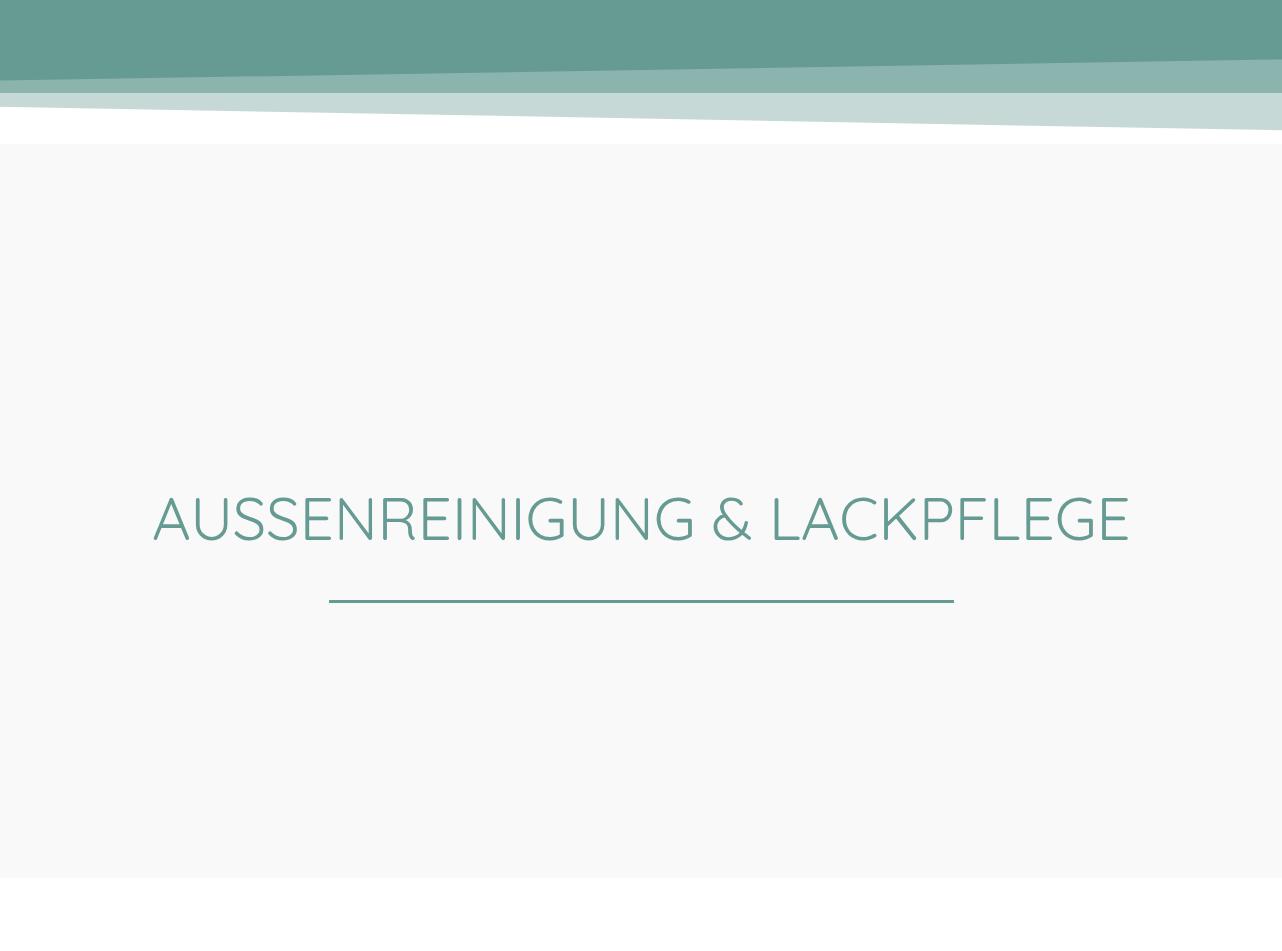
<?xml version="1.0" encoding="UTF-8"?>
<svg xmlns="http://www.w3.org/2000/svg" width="1282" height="951">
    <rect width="100%" height="100%" fill="#F9F9F9"/>
    <rect x="0" y="0" width="1282" height="93" fill="#669B93"/>
    <rect x="0" y="93" width="1282" height="38" fill="#B3CDC9"/>
    <path d="M 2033 144 H -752 V 93 Z" fill="#FFFFFF"/>
    <path d="M -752 144 H 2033 V 47 L -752 93 Z" fill="#FFFFFF" fill-opacity="0.25"/>
    <text x="152" y="540" font-family="Quicksand" font-size="60" fill="#669B93">AUSSENREINIGUNG &amp; LACKPFLEGE</text>
    <rect x="329" y="600" width="625" height="3" fill="#669B93"/>
    <rect x="0" y="878" width="1282" height="73" fill="#FFFFFF"/>
</svg>
